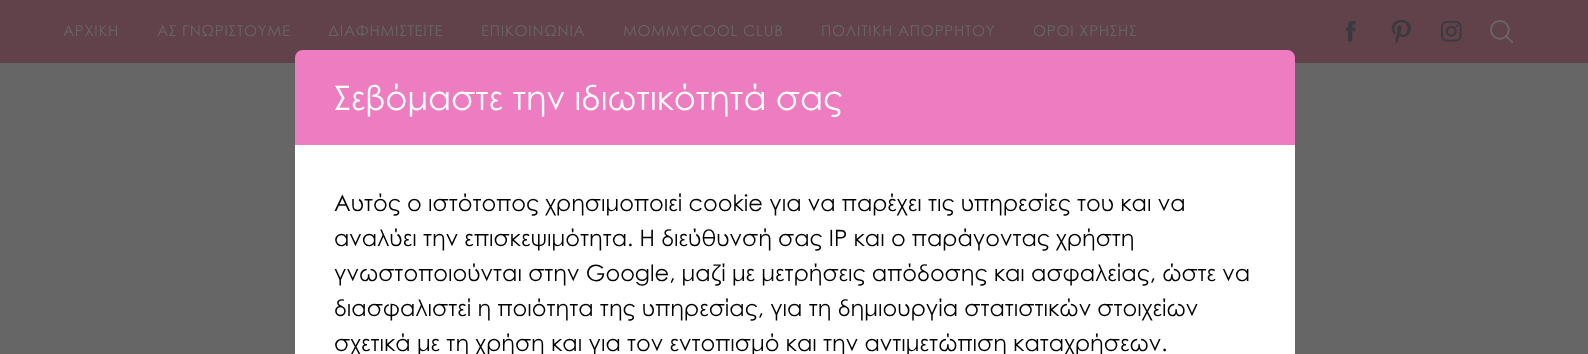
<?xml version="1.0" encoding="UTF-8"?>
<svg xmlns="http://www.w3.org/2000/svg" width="1588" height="354">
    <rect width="100%" height="100%" fill="#666666"/>
    <rect x="0" y="0" width="1588" height="63" fill="#62424A"/>
    <text x="63" y="36" font-family="Century Gothic" font-size="15" letter-spacing="0.75" fill="#666666">ΑΡΧΙΚΗ</text>
    <text x="157" y="36" font-family="Century Gothic" font-size="15" letter-spacing="0.75" fill="#666666">ΑΣ ΓΝΩΡΙΣΤΟΥΜΕ</text>
    <text x="328" y="36" font-family="Century Gothic" font-size="15" letter-spacing="0.75" fill="#666666">ΔΙΑΦΗΜΙΣΤΕΙΤΕ</text>
    <text x="481" y="36" font-family="Century Gothic" font-size="15" letter-spacing="0.75" fill="#666666">ΕΠΙΚΟΙΝΩΝΙΑ</text>
    <text x="623" y="36" font-family="Century Gothic" font-size="15" letter-spacing="0.75" fill="#666666">MOMMYCOOL CLUB</text>
    <text x="821" y="36" font-family="Century Gothic" font-size="15" letter-spacing="0.75" fill="#666666">ΠΟΛΙΤΙΚΗ ΑΠΟΡΡΗΤΟΥ</text>
    <text x="1033" y="36" font-family="Century Gothic" font-size="15" letter-spacing="0.75" fill="#666666">ΟΡΟΙ ΧΡΗΣΗΣ</text>
    <image x="1345" y="20" width="11" height="22" href="img_01.png"/>
    <image x="1391" y="19" width="20" height="25" href="img_02.png"/>
    <image x="1440" y="20" width="22" height="22" href="img_03.png"/>
    <image x="1490" y="20" width="23" height="23" href="img_04.png"/>
    <path d="M 303 50 H 1287 C 1291.5 50 1295 53.5 1295 58 V 145 H 295 V 58 C 295 53.5 298.5 50 303 50 Z" fill="#ED7DC0"/>
    <text x="334" y="110" font-family="Century Gothic" font-size="33.75" fill="#FFFFFF">Σεβόμαστε την ιδιωτικότητά σας</text>
    <rect x="295" y="145" width="1000" height="209" fill="#FFFFFF"/>
    <text font-family="Century Gothic" font-size="22.5" fill="#000000">
        <tspan x="334" y="211">Αυτός ο ιστότοπος χρησιμοποιεί cookie για να παρέχει τις υπηρεσίες του και να</tspan>
        <tspan x="334" y="246">αναλύει την επισκεψιμότητα. Η διεύθυνσή σας IP και ο παράγοντας χρήστη</tspan>
        <tspan x="334" y="281">γνωστοποιούνται στην Google, μαζί με μετρήσεις απόδοσης και ασφαλείας, ώστε να</tspan>
        <tspan x="334" y="316">διασφαλιστεί η ποιότητα της υπηρεσίας, για τη δημιουργία στατιστικών στοιχείων</tspan>
        <tspan x="334" y="351">σχετικά με τη χρήση και για τον εντοπισμό και την αντιμετώπιση καταχρήσεων.</tspan>
    </text>
</svg>
